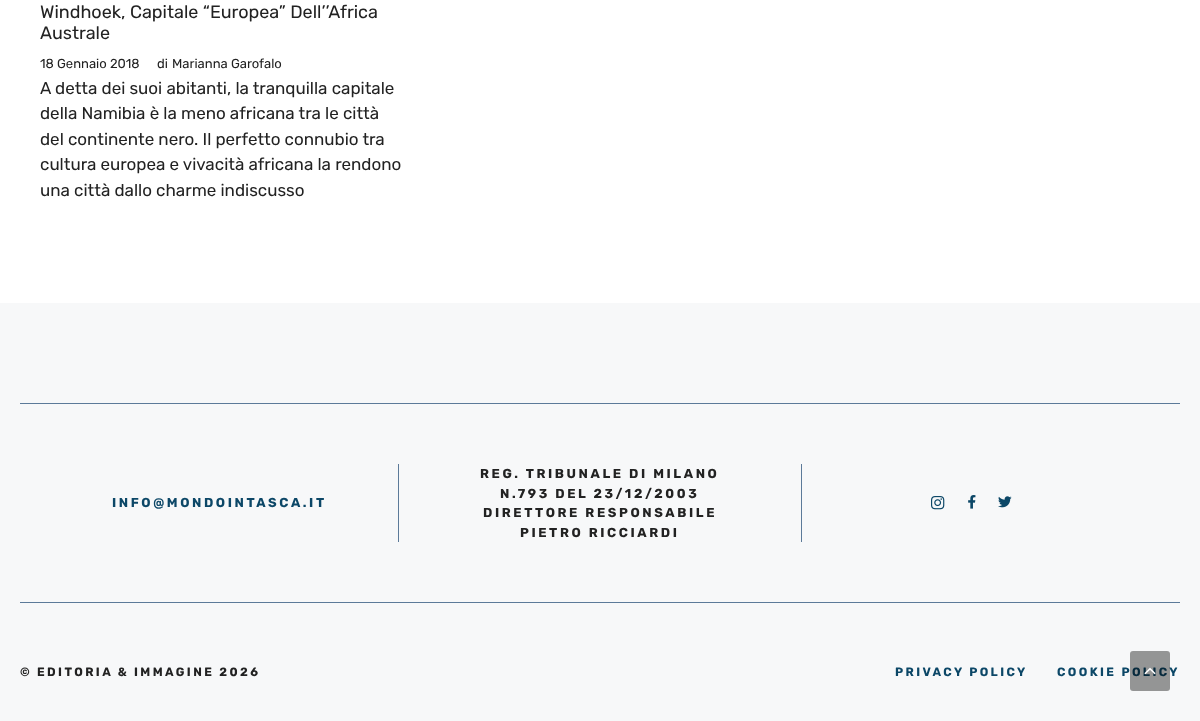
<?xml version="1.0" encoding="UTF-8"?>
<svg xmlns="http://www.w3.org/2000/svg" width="1200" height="721">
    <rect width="100%" height="100%" fill="#FFFFFF"/>
    <text font-family="Rubik" font-size="18" fill="#222222">
        <tspan x="40" y="18">Windhoek, Capitale “Europea” Dell’’Africa</tspan>
        <tspan x="40" y="39">Australe</tspan>
    </text>
    <text x="40" y="68" font-family="Rubik" font-size="13" fill="#222222">18 Gennaio 2018</text>
    <text x="157" y="68" font-family="Rubik" font-size="13" fill="#222222">di</text>
    <text x="172" y="68" font-family="Rubik" font-size="13" fill="#222222">Marianna Garofalo</text>
    <text font-family="Rubik" font-size="17" fill="#222222">
        <tspan x="40" y="94">A detta dei suoi abitanti, la tranquilla capitale</tspan>
        <tspan x="40" y="119">della Namibia è la meno africana tra le città</tspan>
        <tspan x="40" y="145">del continente nero. Il perfetto connubio tra</tspan>
        <tspan x="40" y="170">cultura europea e vivacità africana la rendono</tspan>
        <tspan x="40" y="196">una città dallo charme indiscusso</tspan>
    </text>
    <rect x="0" y="303" width="1200" height="418" fill="#F7F8F9"/>
    <rect x="20" y="403" width="1160" height="1" fill="#5C7A99"/>
    <rect x="20" y="602" width="1160" height="1" fill="#5C7A99"/>
    <text x="112" y="507" font-family="Rubik" font-size="13" font-weight="700" letter-spacing="2.6" fill="#0C4767">INFO@MONDOINTASCA.IT</text>
    <rect x="801" y="464" width="1" height="78" fill="#5C7A99"/>
    <rect x="398" y="464" width="1" height="78" fill="#5C7A99"/>
    <text x="480" y="478" font-family="Rubik" font-size="13" font-weight="700" letter-spacing="2.6" fill="#222222">REG. TRIBUNALE DI MILANO</text>
    <text x="500" y="498" font-family="Rubik" font-size="13" font-weight="700" letter-spacing="2.6" fill="#222222">N.793 DEL 23/12/2003</text>
    <text x="483" y="517" font-family="Rubik" font-size="13" font-weight="700" letter-spacing="2.6" fill="#222222">DIRETTORE RESPONSABILE</text>
    <text x="520" y="537" font-family="Rubik" font-size="13" font-weight="700" letter-spacing="2.6" fill="#222222">PIETRO RICCIARDI</text>
    <image x="931" y="496" width="14" height="14" href="img_01.png"/>
    <image x="968" y="495" width="8" height="14" href="img_02.png"/>
    <image x="998" y="496" width="14" height="12" href="img_03.png"/>
    <text x="20" y="676" font-family="Rubik" font-size="12" font-weight="700" letter-spacing="2.4" fill="#222222">© EDITORIA &amp; IMMAGINE 2026</text>
    <text x="895" y="676" font-family="Rubik" font-size="12" font-weight="700" letter-spacing="2.4" fill="#0C4767">PRIVACY POLICY</text>
    <text x="1057" y="676" font-family="Rubik" font-size="12" font-weight="700" letter-spacing="2.4" fill="#0C4767">COOKIE POLICY</text>
    <rect x="1130" y="651" width="40" height="40" rx="3" fill="#000000" fill-opacity="0.4"/>
    <image x="1144" y="667" width="12" height="8" href="img_04.png"/>
</svg>
